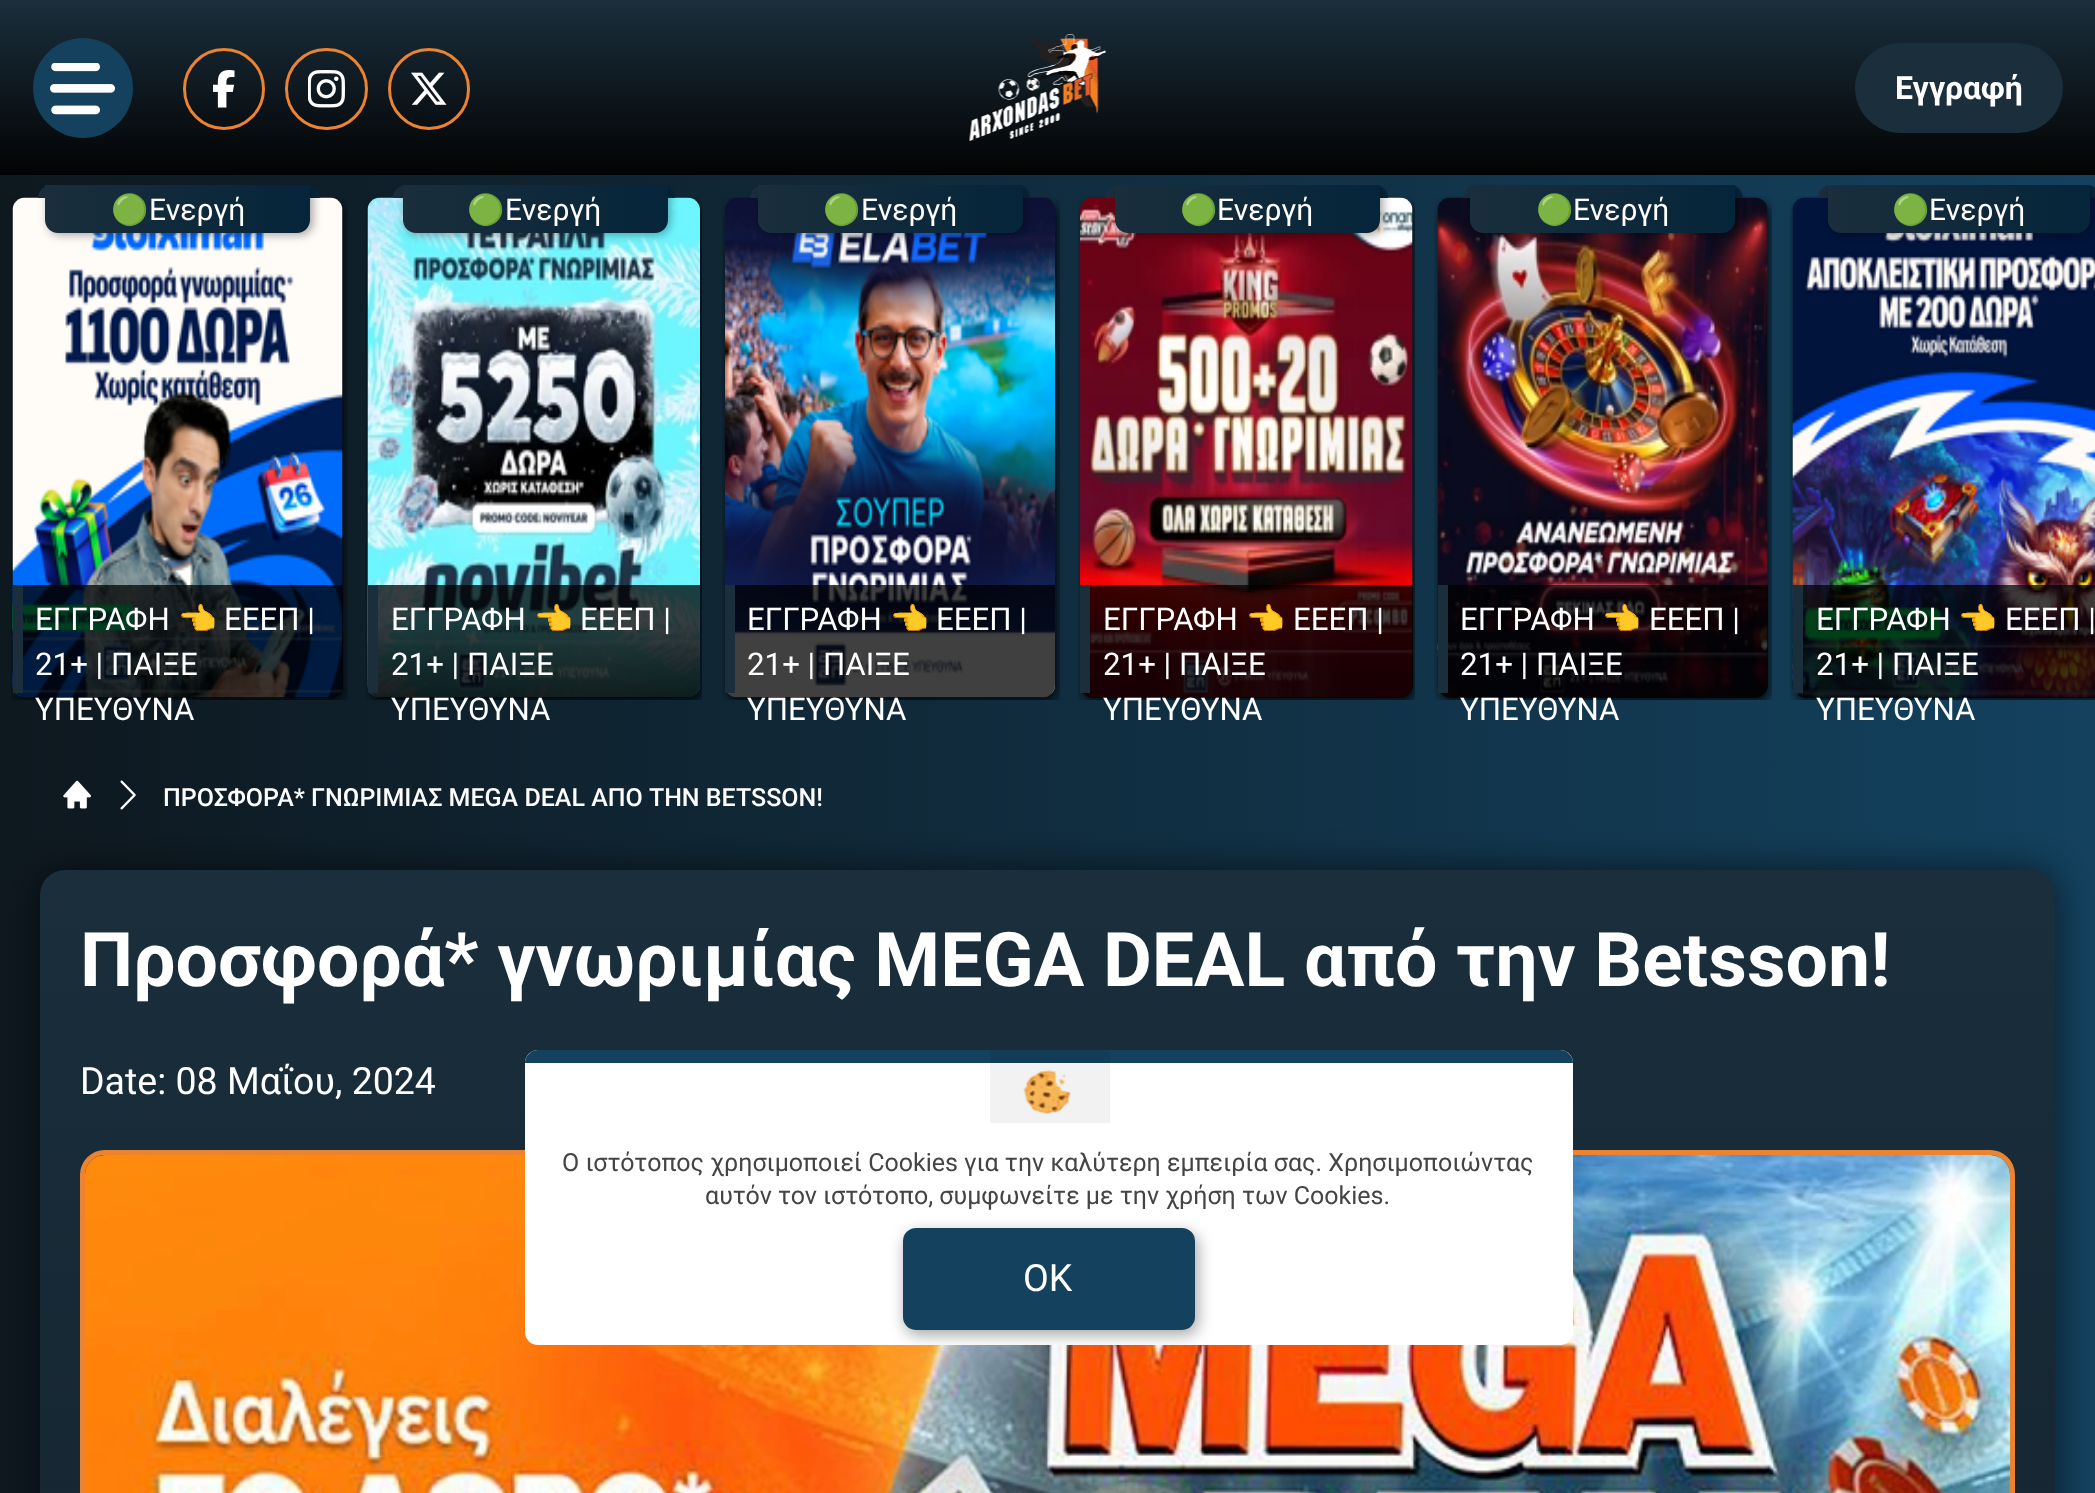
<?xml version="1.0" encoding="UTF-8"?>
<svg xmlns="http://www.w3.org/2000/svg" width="2095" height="1493">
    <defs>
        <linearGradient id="g1" gradientUnits="userSpaceOnUse" x1="2095" y1="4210" x2="0" y2="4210"><stop offset="0" stop-color="#13415E"/><stop offset="1" stop-color="#0E181F"/></linearGradient>
        <linearGradient id="g2" gradientUnits="userSpaceOnUse" x1="38" y1="191" x2="320" y2="191"><stop offset="0" stop-color="#1A2E3C"/><stop offset="1" stop-color="#05253A"/></linearGradient>
        <clipPath id="clip1"><rect x="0" y="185" width="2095" height="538"/></clipPath>
        <filter id="blur1" x="-50%" y="-200%" width="200%" height="500%"><feGaussianBlur stdDeviation="5"/></filter>
        <linearGradient id="g3" gradientUnits="userSpaceOnUse" x1="393" y1="191" x2="675" y2="191"><stop offset="0" stop-color="#1A2E3C"/><stop offset="1" stop-color="#05253A"/></linearGradient>
        <linearGradient id="g4" gradientUnits="userSpaceOnUse" x1="750" y1="191" x2="1030" y2="191"><stop offset="0" stop-color="#1A2E3C"/><stop offset="1" stop-color="#05253A"/></linearGradient>
        <linearGradient id="g5" gradientUnits="userSpaceOnUse" x1="1105" y1="191" x2="1388" y2="191"><stop offset="0" stop-color="#1A2E3C"/><stop offset="1" stop-color="#05253A"/></linearGradient>
        <linearGradient id="g6" gradientUnits="userSpaceOnUse" x1="1463" y1="191" x2="1743" y2="191"><stop offset="0" stop-color="#1A2E3C"/><stop offset="1" stop-color="#05253A"/></linearGradient>
        <linearGradient id="g7" gradientUnits="userSpaceOnUse" x1="1818" y1="191" x2="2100" y2="191"><stop offset="0" stop-color="#1A2E3C"/><stop offset="1" stop-color="#05253A"/></linearGradient>
        <linearGradient id="g8" gradientUnits="userSpaceOnUse" x1="1048" y1="0" x2="1048" y2="175"><stop offset="0" stop-color="#1A2E3C"/><stop offset="1" stop-color="#030303"/></linearGradient>
        <linearGradient id="g9" gradientUnits="userSpaceOnUse" x1="45" y1="208" x2="310" y2="208"><stop offset="0" stop-color="#1A2E3C"/><stop offset="1" stop-color="#05253A"/></linearGradient>
        <linearGradient id="g10" gradientUnits="userSpaceOnUse" x1="403" y1="208" x2="668" y2="208"><stop offset="0" stop-color="#1A2E3C"/><stop offset="1" stop-color="#05253A"/></linearGradient>
        <linearGradient id="g11" gradientUnits="userSpaceOnUse" x1="758" y1="208" x2="1023" y2="208"><stop offset="0" stop-color="#1A2E3C"/><stop offset="1" stop-color="#05253A"/></linearGradient>
        <linearGradient id="g12" gradientUnits="userSpaceOnUse" x1="1115" y1="208" x2="1380" y2="208"><stop offset="0" stop-color="#1A2E3C"/><stop offset="1" stop-color="#05253A"/></linearGradient>
        <linearGradient id="g13" gradientUnits="userSpaceOnUse" x1="1470" y1="208" x2="1735" y2="208"><stop offset="0" stop-color="#1A2E3C"/><stop offset="1" stop-color="#05253A"/></linearGradient>
        <linearGradient id="g14" gradientUnits="userSpaceOnUse" x1="1828" y1="208" x2="2090" y2="208"><stop offset="0" stop-color="#1A2E3C"/><stop offset="1" stop-color="#05253A"/></linearGradient>
        <filter id="blur2" x="-50%" y="-200%" width="200%" height="500%"><feGaussianBlur stdDeviation="19"/></filter>
        <linearGradient id="g15" gradientUnits="userSpaceOnUse" x1="1047" y1="870" x2="1048" y2="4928"><stop offset="0" stop-color="#1A2E3C"/><stop offset="0.5" stop-color="#0E181F"/></linearGradient>
        <clipPath id="clip2"><rect x="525" y="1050" width="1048" height="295" rx="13"/></clipPath>
        <clipPath id="clip3"><path d="M 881 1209 H 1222 V 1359 H 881 Z M 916 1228 H 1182 C 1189 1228 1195 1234 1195 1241 V 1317 C 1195 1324 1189 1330 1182 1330 H 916 C 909 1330 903 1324 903 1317 V 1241 C 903 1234 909 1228 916 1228 Z" clip-rule="evenodd"/></clipPath>
        <filter id="blur3" x="-50%" y="-200%" width="200%" height="500%"><feGaussianBlur stdDeviation="7.5"/></filter>
    </defs>
    <rect width="100%" height="100%" fill="#FFFFFF"/>
    <rect x="0" y="175" width="2095" height="1318" fill="url(#g1)"/>
    <image x="11" y="197" width="337" height="503" href="img_06.png"/>
    <path d="M 51 185 H 307 C 314 185 320 191 320 198 H 38 C 38 191 44 185 51 185 Z" fill="url(#g2)"/>
    <g clip-path="url(#clip1)">
        <rect x="48" y="185" width="265" height="50" rx="13" fill="#000000" fill-opacity="0.35" filter="url(#blur1)"/>
    </g>
    <image x="365" y="197" width="337" height="503" href="img_07.png"/>
    <path d="M 406 185 H 662 C 669 185 675 191 675 198 H 393 C 393 191 399 185 406 185 Z" fill="url(#g3)"/>
    <g clip-path="url(#clip1)">
        <rect x="405" y="185" width="265" height="50" rx="13" fill="#000000" fill-opacity="0.35" filter="url(#blur1)"/>
    </g>
    <image x="722" y="197" width="338" height="503" href="img_08.png"/>
    <path d="M 763 185 H 1017 C 1024 185 1030 191 1030 198 H 750 C 750 191 756 185 763 185 Z" fill="url(#g4)"/>
    <g clip-path="url(#clip1)">
        <rect x="760" y="185" width="265" height="50" rx="13" fill="#000000" fill-opacity="0.35" filter="url(#blur1)"/>
    </g>
    <image x="1078" y="196" width="337" height="504" href="img_09.png"/>
    <path d="M 1118 185 H 1375 C 1382 185 1388 191 1388 198 H 1105 C 1105 191 1111 185 1118 185 Z" fill="url(#g5)"/>
    <g clip-path="url(#clip1)">
        <rect x="1118" y="185" width="265" height="50" rx="13" fill="#000000" fill-opacity="0.35" filter="url(#blur1)"/>
    </g>
    <image x="1434" y="196" width="338" height="504" href="img_10.png"/>
    <path d="M 1476 185 H 1730 C 1737 185 1743 191 1743 198 H 1463 C 1463 191 1469 185 1476 185 Z" fill="url(#g6)"/>
    <g clip-path="url(#clip1)">
        <rect x="1473" y="185" width="265" height="50" rx="13" fill="#000000" fill-opacity="0.35" filter="url(#blur1)"/>
    </g>
    <image x="1790" y="196" width="305" height="504" href="img_11.png"/>
    <path d="M 1831 185 H 2087 C 2094 185 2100 191 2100 198 H 1818 C 1818 191 1824 185 1831 185 Z" fill="url(#g7)"/>
    <g clip-path="url(#clip1)">
        <rect x="1830" y="185" width="263" height="50" rx="13" fill="#000000" fill-opacity="0.35" filter="url(#blur1)"/>
    </g>
    <rect x="0" y="0" width="2095" height="175" fill="url(#g8)"/>
    <circle cx="83" cy="88" r="50" fill="#13415E"/>
    <image x="50" y="63" width="65" height="52" href="img_01.png"/>
    <circle cx="224" cy="89" r="39.5" fill="none" stroke="#EC8331" stroke-width="3"/>
    <image x="213" y="70" width="22" height="38" href="img_02.png"/>
    <rect x="286.5" y="49.5" width="80" height="79" rx="39.5" fill="none" stroke="#EC8331" stroke-width="3"/>
    <image x="308" y="70" width="37" height="38" href="img_03.png"/>
    <circle cx="429" cy="89" r="39.5" fill="none" stroke="#EC8331" stroke-width="3"/>
    <image x="411" y="72" width="36" height="33" href="img_04.png"/>
    <image x="969" y="34" width="137" height="107" href="img_05.png"/>
    <rect x="1855" y="43" width="208" height="90" rx="45" fill="#1A2E3C"/>
    <text x="1895" y="99" font-family="Roboto" font-size="32" font-weight="700" fill="#FFFFFF">Εγγραφή</text>
    <path d="M 45 185 H 310 V 220 C 310 227 304 233 297 233 H 58 C 51 233 45 227 45 220 Z" fill="url(#g9)"/>
    <text x="111" y="220" font-family="Noto Color Emoji" font-size="30" fill="#FFFFFF">🟢</text>
    <text x="149" y="220" font-family="Roboto" font-size="30" fill="#FFFFFF">Ενεργή</text>
    <path d="M 13 585 H 343 V 685 C 343 692 337 698 330 698 H 26 C 19 698 13 692 13 685 Z" fill="#000000" fill-opacity="0.75"/>
    <rect x="13" y="585" width="10" height="108" fill="#1A2E3C"/>
    <text x="35" y="630" font-family="Roboto" font-size="31.25" fill="#FFFFFF">ΕΓΓΡΑΦΗ</text>
    <text x="178" y="630" font-family="Noto Color Emoji" font-size="31.25" fill="#FFFFFF">👈</text>
    <text x="224" y="630" font-family="Roboto" font-size="31.25" fill="#FFFFFF">ΕΕΕΠ |</text>
    <text font-family="Roboto" font-size="31.25" fill="#FFFFFF">
        <tspan x="35" y="675">21+ | ΠΑΙΞΕ</tspan>
        <tspan x="35" y="720">ΥΠΕΥΘΥΝΑ</tspan>
    </text>
    <path d="M 403 185 H 668 V 220 C 668 227 662 233 655 233 H 416 C 409 233 403 227 403 220 Z" fill="url(#g10)"/>
    <text x="467" y="220" font-family="Noto Color Emoji" font-size="30" fill="#FFFFFF">🟢</text>
    <text x="505" y="220" font-family="Roboto" font-size="30" fill="#FFFFFF">Ενεργή</text>
    <path d="M 368 585 H 700 V 685 C 700 692 694 698 687 698 H 381 C 374 698 368 692 368 685 Z" fill="#000000" fill-opacity="0.75"/>
    <rect x="368" y="585" width="10" height="108" fill="#1A2E3C"/>
    <text x="391" y="630" font-family="Roboto" font-size="31.25" fill="#FFFFFF">ΕΓΓΡΑΦΗ</text>
    <text x="534" y="630" font-family="Noto Color Emoji" font-size="31.25" fill="#FFFFFF">👈</text>
    <text x="580" y="630" font-family="Roboto" font-size="31.25" fill="#FFFFFF">ΕΕΕΠ |</text>
    <text font-family="Roboto" font-size="31.25" fill="#FFFFFF">
        <tspan x="391" y="675">21+ | ΠΑΙΞΕ</tspan>
        <tspan x="391" y="720">ΥΠΕΥΘΥΝΑ</tspan>
    </text>
    <path d="M 758 185 H 1023 V 220 C 1023 227 1017 233 1010 233 H 771 C 764 233 758 227 758 220 Z" fill="url(#g11)"/>
    <text x="823" y="220" font-family="Noto Color Emoji" font-size="30" fill="#FFFFFF">🟢</text>
    <text x="861" y="220" font-family="Roboto" font-size="30" fill="#FFFFFF">Ενεργή</text>
    <path d="M 725 585 H 1055 V 685 C 1055 692 1049 698 1042 698 H 738 C 731 698 725 692 725 685 Z" fill="#000000" fill-opacity="0.75"/>
    <rect x="725" y="585" width="10" height="108" fill="#1A2E3C"/>
    <text x="747" y="630" font-family="Roboto" font-size="31.25" fill="#FFFFFF">ΕΓΓΡΑΦΗ</text>
    <text x="890" y="630" font-family="Noto Color Emoji" font-size="31.25" fill="#FFFFFF">👈</text>
    <text x="936" y="630" font-family="Roboto" font-size="31.25" fill="#FFFFFF">ΕΕΕΠ |</text>
    <text font-family="Roboto" font-size="31.25" fill="#FFFFFF">
        <tspan x="747" y="675">21+ | ΠΑΙΞΕ</tspan>
        <tspan x="747" y="720">ΥΠΕΥΘΥΝΑ</tspan>
    </text>
    <path d="M 1115 185 H 1380 V 220 C 1380 227 1374 233 1367 233 H 1128 C 1121 233 1115 227 1115 220 Z" fill="url(#g12)"/>
    <text x="1180" y="220" font-family="Noto Color Emoji" font-size="30" fill="#FFFFFF">🟢</text>
    <text x="1217" y="220" font-family="Roboto" font-size="30" fill="#FFFFFF">Ενεργή</text>
    <path d="M 1080 585 H 1413 V 685 C 1413 692 1407 698 1400 698 H 1093 C 1086 698 1080 692 1080 685 Z" fill="#000000" fill-opacity="0.75"/>
    <rect x="1080" y="585" width="10" height="108" fill="#1A2E3C"/>
    <text x="1103" y="630" font-family="Roboto" font-size="31.25" fill="#FFFFFF">ΕΓΓΡΑΦΗ</text>
    <text x="1246" y="630" font-family="Noto Color Emoji" font-size="31.25" fill="#FFFFFF">👈</text>
    <text x="1293" y="630" font-family="Roboto" font-size="31.25" fill="#FFFFFF">ΕΕΕΠ |</text>
    <text font-family="Roboto" font-size="31.25" fill="#FFFFFF">
        <tspan x="1103" y="675">21+ | ΠΑΙΞΕ</tspan>
        <tspan x="1103" y="720">ΥΠΕΥΘΥΝΑ</tspan>
    </text>
    <path d="M 1470 185 H 1735 V 220 C 1735 227 1729 233 1722 233 H 1483 C 1476 233 1470 227 1470 220 Z" fill="url(#g13)"/>
    <text x="1536" y="220" font-family="Noto Color Emoji" font-size="30" fill="#FFFFFF">🟢</text>
    <text x="1573" y="220" font-family="Roboto" font-size="30" fill="#FFFFFF">Ενεργή</text>
    <path d="M 1438 585 H 1768 V 685 C 1768 692 1762 698 1755 698 H 1451 C 1444 698 1438 692 1438 685 Z" fill="#000000" fill-opacity="0.75"/>
    <rect x="1438" y="585" width="10" height="108" fill="#1A2E3C"/>
    <text x="1460" y="630" font-family="Roboto" font-size="31.25" fill="#FFFFFF">ΕΓΓΡΑΦΗ</text>
    <text x="1602" y="630" font-family="Noto Color Emoji" font-size="31.25" fill="#FFFFFF">👈</text>
    <text x="1649" y="630" font-family="Roboto" font-size="31.25" fill="#FFFFFF">ΕΕΕΠ |</text>
    <text font-family="Roboto" font-size="31.25" fill="#FFFFFF">
        <tspan x="1460" y="675">21+ | ΠΑΙΞΕ</tspan>
        <tspan x="1460" y="720">ΥΠΕΥΘΥΝΑ</tspan>
    </text>
    <path d="M 1828 185 H 2090 V 220 C 2090 227 2084 233 2077 233 H 1841 C 1834 233 1828 227 1828 220 Z" fill="url(#g14)"/>
    <text x="1892" y="220" font-family="Noto Color Emoji" font-size="30" fill="#FFFFFF">🟢</text>
    <text x="1929" y="220" font-family="Roboto" font-size="30" fill="#FFFFFF">Ενεργή</text>
    <path d="M 1793 585 H 2095 V 698 H 1806 C 1799 698 1793 692 1793 685 Z" fill="#000000" fill-opacity="0.75"/>
    <rect x="1793" y="585" width="10" height="108" fill="#1A2E3C"/>
    <text x="1816" y="630" font-family="Roboto" font-size="31.25" fill="#FFFFFF">ΕΓΓΡΑΦΗ</text>
    <text x="1958" y="630" font-family="Noto Color Emoji" font-size="31.25" fill="#FFFFFF">👈</text>
    <text x="2005" y="630" font-family="Roboto" font-size="31.25" fill="#FFFFFF">ΕΕΕΠ |</text>
    <text font-family="Roboto" font-size="31.25" fill="#FFFFFF">
        <tspan x="1816" y="675">21+ | ΠΑΙΞΕ</tspan>
        <tspan x="1816" y="720">ΥΠΕΥΘΥΝΑ</tspan>
    </text>
    <image x="63" y="780" width="28" height="29" href="img_12.png"/>
    <image x="120" y="780" width="16" height="30" href="img_13.png"/>
    <text x="163" y="806" font-family="Roboto" font-size="25" font-weight="500" fill="#FFFFFF">ΠΡΟΣΦΟΡΑ* ΓΝΩΡΙΜΙΑΣ MEGA DEAL ΑΠΟ ΤΗΝ BETSSON!</text>
    <rect x="40" y="870" width="2015" height="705" rx="25" fill="#000000" fill-opacity="0.6" filter="url(#blur2)"/>
    <rect x="40" y="870" width="2015" height="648" rx="25" fill="url(#g15)"/>
    <text x="80" y="986" font-family="Roboto" font-size="75.2" font-weight="700" fill="#FFFFFF">Προσφορά* γνωριμίας MEGA DEAL από την Betsson!</text>
    <text x="80" y="1094" font-family="Roboto" font-size="37.5" fill="#FFFFFF">Date: 08 Μαΐου, 2024</text>
    <rect x="82.5" y="1152.5" width="1930" height="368" rx="22.5" fill="none" stroke="#EC8331" stroke-width="5"/>
    <image x="85" y="1155" width="1925" height="338" href="img_14.png"/>
    <rect x="525" y="1050" width="1048" height="295" rx="13" fill="#FFFFFF"/>
    <path d="M 538 1050 H 1560 C 1567 1050 1573 1056 1573 1063 H 525 C 525 1056 531 1050 538 1050 Z" fill="#13415E"/>
    <rect x="990" y="1050" width="120" height="73" fill="#000000" fill-opacity="0.05"/>
    <image x="1023" y="1070" width="48" height="44" href="img_15.png"/>
    <text x="562" y="1171" font-family="Roboto" font-size="25" fill="#444444">Ο ιστότοπος χρησιμοποιεί Cookies για την καλύτερη εμπειρία σας. Χρησιμοποιώντας</text>
    <text x="705" y="1204" font-family="Roboto" font-size="25" fill="#444444">αυτόν τον ιστότοπο, συμφωνείτε με την χρήση των Cookies.</text>
    <g clip-path="url(#clip2)">
        <g clip-path="url(#clip3)">
            <rect x="905" y="1233" width="293" height="102" rx="13" fill="#000000" fill-opacity="0.35" filter="url(#blur3)"/>
        </g>
    </g>
    <rect x="904.5" y="1229.5" width="289" height="99" rx="11.5" fill="#13415E" stroke="#13415E" stroke-width="3"/>
    <text x="1023" y="1291" font-family="Roboto" font-size="37.5" fill="#FFFFFF">OK</text>
</svg>
